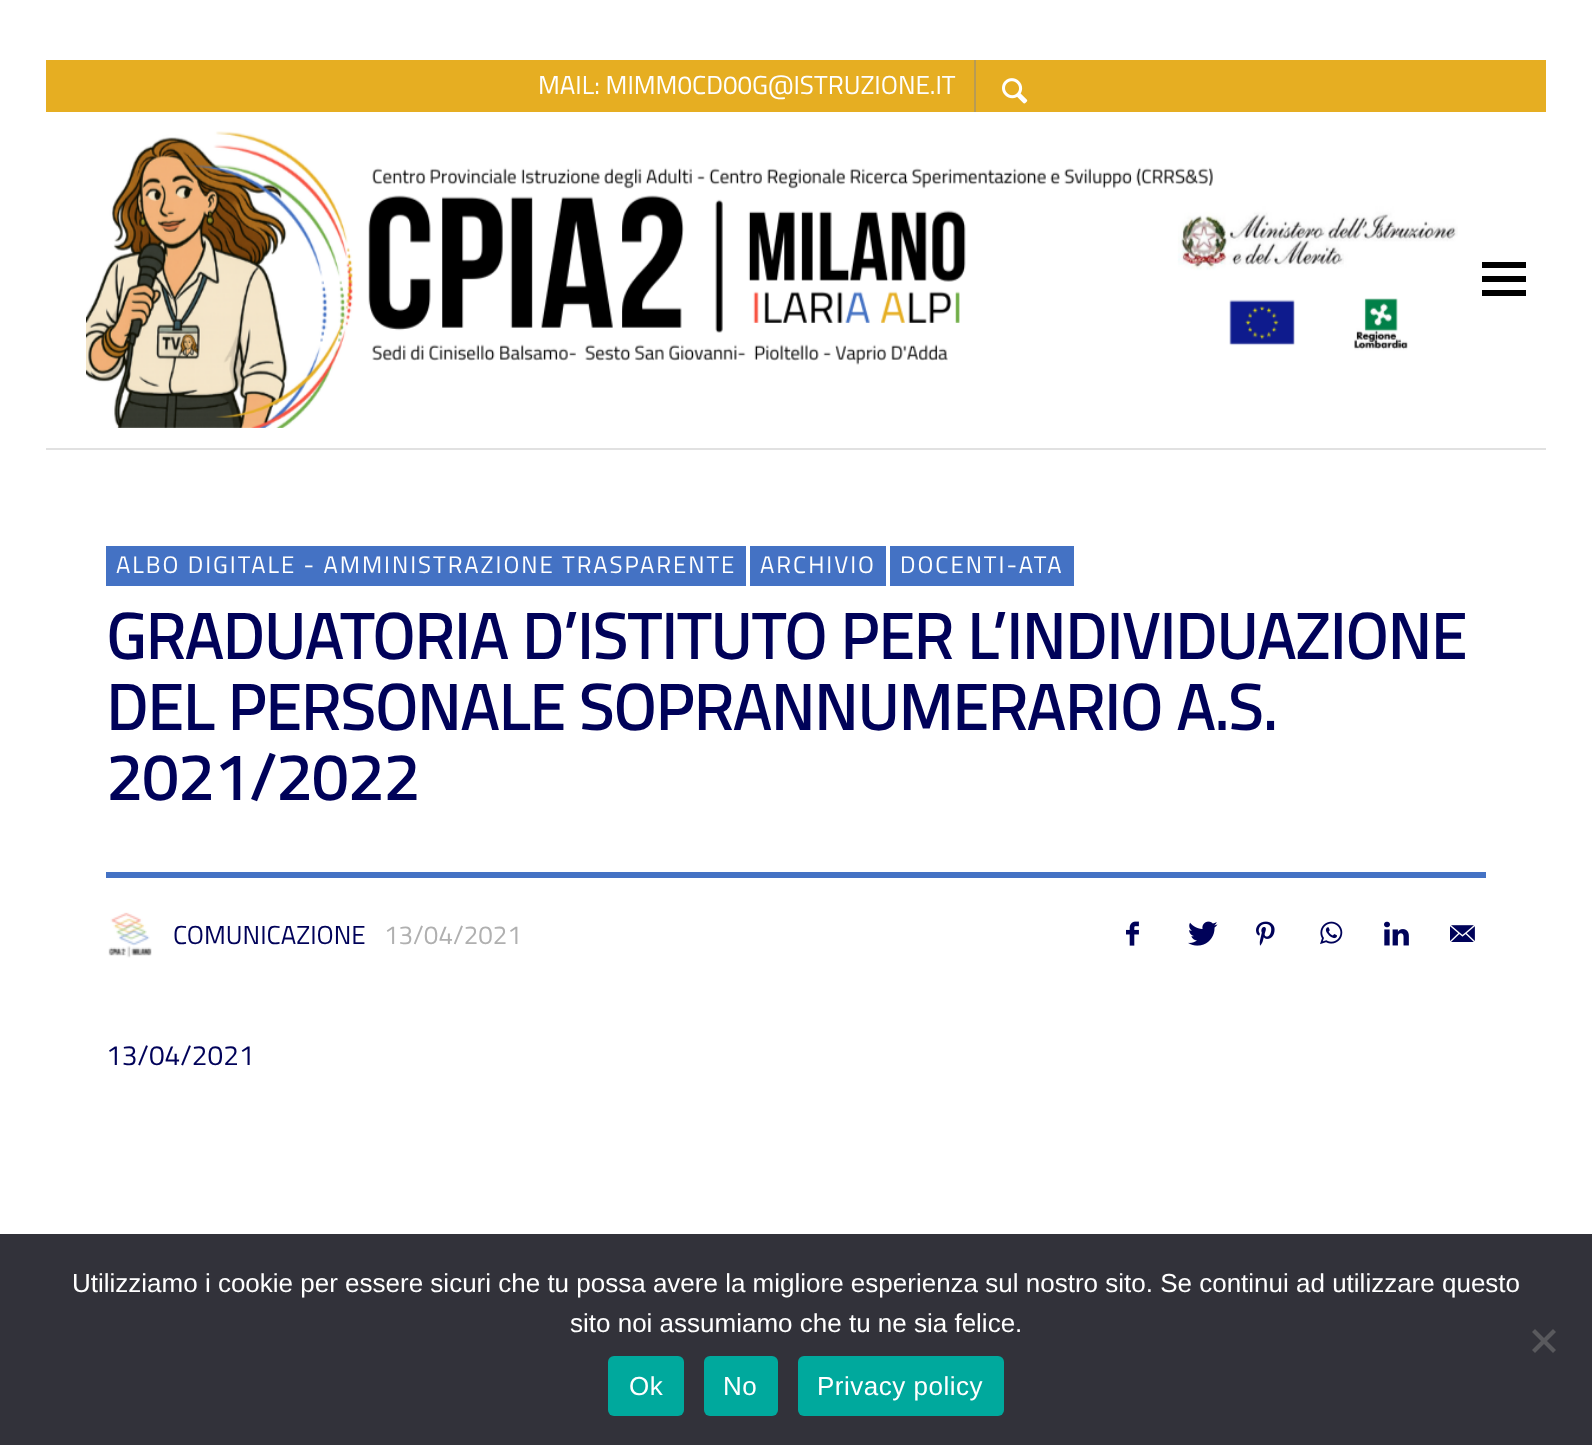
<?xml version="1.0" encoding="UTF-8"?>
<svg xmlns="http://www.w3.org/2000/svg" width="1592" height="1445">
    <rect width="100%" height="100%" fill="#FFFFFF"/>
    <rect x="46" y="448" width="1500" height="2" fill="#E1E1E1"/>
    <rect x="46" y="60" width="1500" height="52" fill="#E6AE22"/>
    <text x="538" y="94" font-family="Titillium Web" font-size="26" fill="#FFFFFF">MAIL: MIMM0CD00G@ISTRUZIONE.IT</text>
    <rect x="974" y="60" width="2" height="52" fill="#B79B55"/>
    <image x="1002" y="78" width="26" height="26" href="img_01.png"/>
    <image x="86" y="131" width="1372" height="297" href="img_02.png"/>
    <rect x="1482" y="276" width="44" height="6" fill="#000000"/>
    <rect x="1482" y="262" width="44" height="6" fill="#000000"/>
    <rect x="1482" y="290" width="44" height="6" fill="#000000"/>
    <rect x="106" y="546" width="640" height="40" fill="#4472C4"/>
    <text x="116" y="573" font-family="Titillium Web" font-size="24" letter-spacing="2" fill="#FFFFFF">ALBO DIGITALE - AMMINISTRAZIONE TRASPARENTE</text>
    <rect x="750" y="546" width="136" height="40" fill="#4472C4"/>
    <text x="760" y="573" font-family="Titillium Web" font-size="24" letter-spacing="2" fill="#FFFFFF">ARCHIVIO</text>
    <rect x="890" y="546" width="184" height="40" fill="#4472C4"/>
    <text x="900" y="573" font-family="Titillium Web" font-size="24" letter-spacing="2" fill="#FFFFFF">DOCENTI-ATA</text>
    <text font-family="Titillium Web" font-size="64" font-weight="700" fill="#000259">
        <tspan x="106" y="659">GRADUATORIA D’ISTITUTO PER L’INDIVIDUAZIONE</tspan>
        <tspan x="106" y="730">DEL PERSONALE SOPRANNUMERARIO A.S.</tspan>
        <tspan x="106" y="800">2021/2022</tspan>
    </text>
    <rect x="106" y="872" width="1380" height="6" fill="#4472C4"/>
    <image x="108" y="912" width="44" height="46" href="img_03.png"/>
    <text x="173" y="944" font-family="Titillium Web" font-size="26" fill="#000259">COMUNICAZIONE</text>
    <text x="384" y="944" font-family="Titillium Web" font-size="26" fill="#B0B0B0">13/04/2021</text>
    <image x="1126" y="921" width="13" height="25" href="img_04.png"/>
    <image x="1188" y="921" width="30" height="25" href="img_05.png"/>
    <image x="1256" y="921" width="19" height="25" href="img_06.png"/>
    <image x="1320" y="921" width="23" height="24" href="img_07.png"/>
    <image x="1384" y="921" width="25" height="25" href="img_08.png"/>
    <image x="1450" y="925" width="25" height="17" href="img_09.png"/>
    <text x="106" y="1065" font-family="Titillium Web" font-size="28" fill="#000259">13/04/2021</text>
    <rect x="0" y="1234" width="1592" height="211" fill="#32323A"/>
    <text x="72" y="1292" font-family="Liberation Sans" font-size="26" fill="#FFFFFF">Utilizziamo i cookie per essere sicuri che tu possa avere la migliore esperienza sul nostro sito. Se continui ad utilizzare questo</text>
    <text x="570" y="1332" font-family="Liberation Sans" font-size="26" fill="#FFFFFF">sito noi assumiamo che tu ne sia felice.</text>
    <path d="M 1553 1329 L 1556 1332 L 1535 1353 L 1532 1350 Z" fill="#59595D"/>
    <path d="M 1532 1332 L 1535 1329 L 1556 1350 L 1553 1353 Z" fill="#59595D"/>
    <rect x="608" y="1356" width="76" height="60" rx="6" fill="#00A99D"/>
    <text x="629" y="1395" font-family="Liberation Sans" font-size="26" letter-spacing="0.5" fill="#FFFFFF">Ok</text>
    <rect x="704" y="1356" width="74" height="60" rx="6" fill="#00A99D"/>
    <text x="723" y="1395" font-family="Liberation Sans" font-size="26" letter-spacing="0.5" fill="#FFFFFF">No</text>
    <rect x="798" y="1356" width="206" height="60" rx="6" fill="#00A99D"/>
    <text x="817" y="1395" font-family="Liberation Sans" font-size="26" letter-spacing="0.5" fill="#FFFFFF">Privacy policy</text>
</svg>
